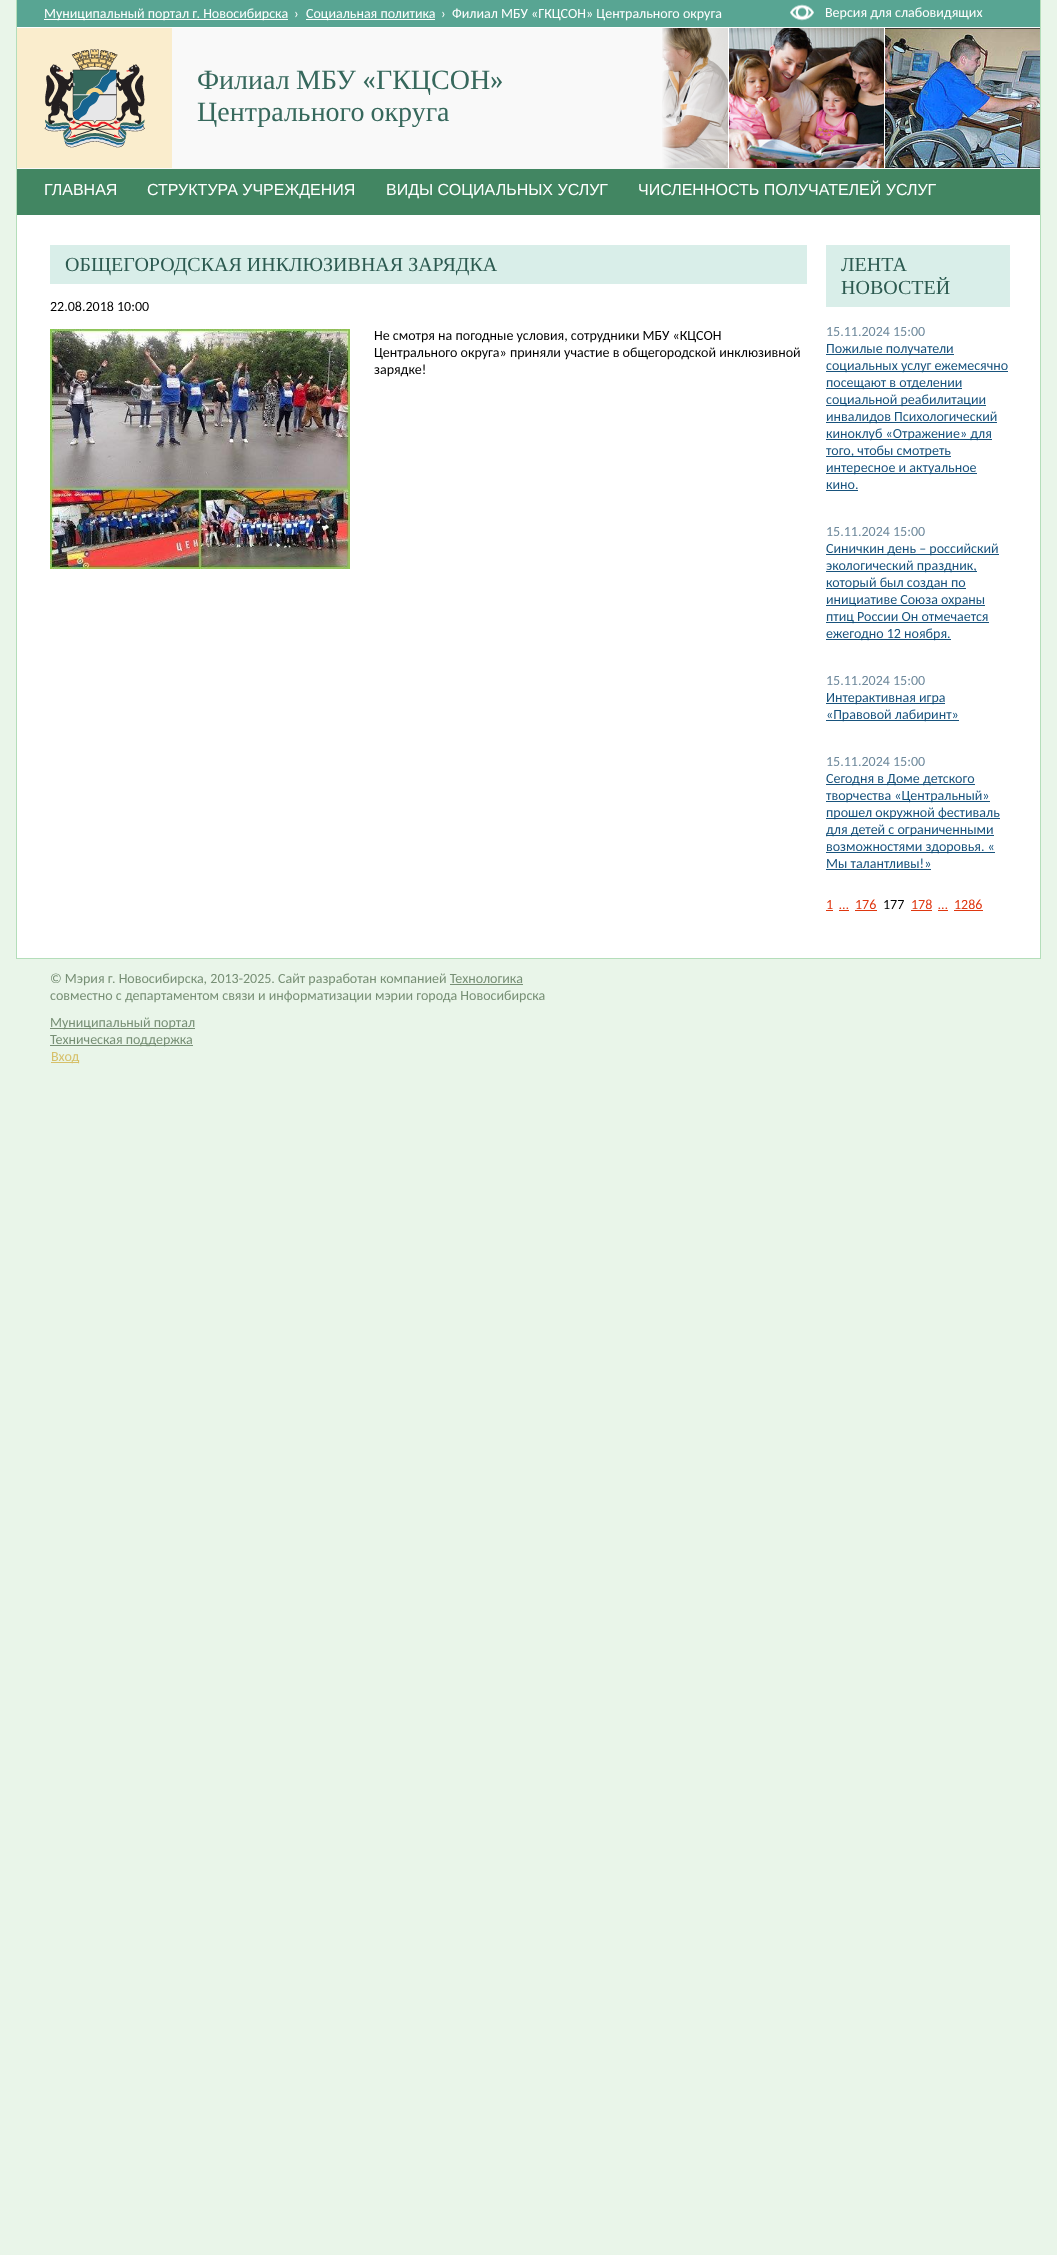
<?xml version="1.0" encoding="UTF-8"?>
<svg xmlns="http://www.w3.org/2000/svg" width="1057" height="2255">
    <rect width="100%" height="100%" fill="#E9F5E9"/>
    <rect x="17" y="215" width="1023" height="743" fill="#FFFFFF"/>
    <rect x="1040" y="0" width="1" height="959" fill="#B4DEBA"/>
    <rect x="16" y="958" width="1025" height="1" fill="#B4DEBA"/>
    <rect x="16" y="0" width="1" height="959" fill="#B4DEBA"/>
    <rect x="17" y="28" width="1023" height="141" fill="#F9F9F9"/>
    <rect x="17" y="27" width="1023" height="1" fill="#FFFFFF"/>
    <rect x="17" y="0" width="1023" height="27" fill="#58A593"/>
    <rect x="44" y="19" width="244" height="1" fill="#FFFFFF"/>
    <text x="44" y="18" font-family="Carlito" font-size="14" fill="#FFFFFF">Муниципальный портал г. Новосибирска</text>
    <text x="294" y="18" font-family="Carlito" font-size="14" fill="#FFFFFF">›</text>
    <rect x="306" y="19" width="129" height="1" fill="#FFFFFF"/>
    <text x="306" y="18" font-family="Carlito" font-size="14" fill="#FFFFFF">Социальная политика</text>
    <text x="441" y="18" font-family="Carlito" font-size="14" fill="#FFFFFF">›</text>
    <text x="452" y="18" font-family="Carlito" font-size="14" fill="#FFFFFF">Филиал МБУ «ГКЦСОН» Центрального округа</text>
    <rect x="17" y="28" width="155" height="140" fill="#FAEDCD"/>
    <image x="44" y="49" width="101" height="99" href="img_01.png"/>
    <image x="662" y="28" width="378" height="140" href="img_02.png"/>
    <image x="573" y="28" width="102" height="140" href="img_03.png"/>
    <text x="197" y="89" font-family="Liberation Serif" font-size="28" fill="#36685C">Филиал</text>
    <text x="296" y="89" font-family="Liberation Serif" font-size="28" fill="#36685C">МБУ</text>
    <text x="362" y="89" font-family="Caladea" font-size="28" fill="#36685C">«</text>
    <text x="376" y="89" font-family="Liberation Serif" font-size="28" fill="#36685C">ГКЦСОН</text>
    <text x="490" y="89" font-family="Caladea" font-size="28" fill="#36685C">»</text>
    <text x="197" y="121" word-spacing="-1" font-family="Liberation Serif" font-size="28" fill="#36685C">Центрального округа</text>
    <image x="790" y="4" width="24" height="17" href="img_04.png"/>
    <text x="825" y="17" font-family="Carlito" font-size="14" fill="#FFFFFF">Версия для слабовидящих</text>
    <rect x="17" y="169" width="1023" height="46" fill="#428662"/>
    <text x="44" y="195" font-family="Liberation Sans" font-size="16" fill="#FFFFFF">ГЛАВНАЯ</text>
    <text x="147" y="195" font-family="Liberation Sans" font-size="16" fill="#FFFFFF">СТРУКТУРА УЧРЕЖДЕНИЯ</text>
    <text x="386" y="195" font-family="Liberation Sans" font-size="16" fill="#FFFFFF">ВИДЫ СОЦИАЛЬНЫХ УСЛУГ</text>
    <text x="638" y="195" font-family="Liberation Sans" font-size="16" fill="#FFFFFF">ЧИСЛЕННОСТЬ ПОЛУЧАТЕЛЕЙ УСЛУГ</text>
    <rect x="50" y="245" width="757" height="39" fill="#D9EEE9"/>
    <text x="65" y="271" font-family="Liberation Serif" font-size="20" fill="#2C5A50">ОБЩЕГОРОДСКАЯ ИНКЛЮЗИВНАЯ ЗАРЯДКА</text>
    <text x="50" y="311" font-family="Carlito" font-size="14" fill="#000000">22.08.2018 10:00</text>
    <image x="50" y="329" width="300" height="240" href="img_05.png"/>
    <text font-family="Carlito" font-size="14" fill="#000000">
        <tspan x="374" y="340">Не смотря на погодные условия, сотрудники МБУ «КЦСОН</tspan>
        <tspan x="374" y="357">Центрального округа» приняли участие в общегородской инклюзивной</tspan>
        <tspan x="374" y="374">зарядке!</tspan>
    </text>
    <rect x="826" y="245" width="184" height="62" fill="#D9EEE9"/>
    <text font-family="Liberation Serif" font-size="20" fill="#2C5A50">
        <tspan x="841" y="271">ЛЕНТА</tspan>
        <tspan x="841" y="294">НОВОСТЕЙ</tspan>
    </text>
    <text x="826" y="336" font-family="Carlito" font-size="14" fill="#6E899C">15.11.2024 15:00</text>
    <rect x="826" y="354" width="128" height="1" fill="#18537D"/>
    <text x="826" y="353" font-family="Carlito" font-size="14" fill="#18537D">Пожилые получатели</text>
    <rect x="826" y="371" width="182" height="1" fill="#18537D"/>
    <text x="826" y="370" font-family="Carlito" font-size="14" fill="#18537D">социальных услуг ежемесячно</text>
    <rect x="826" y="388" width="136" height="1" fill="#18537D"/>
    <text x="826" y="387" font-family="Carlito" font-size="14" fill="#18537D">посещают в отделении</text>
    <rect x="826" y="405" width="160" height="1" fill="#18537D"/>
    <text x="826" y="404" font-family="Carlito" font-size="14" fill="#18537D">социальной реабилитации</text>
    <rect x="826" y="422" width="171" height="1" fill="#18537D"/>
    <text x="826" y="421" font-family="Carlito" font-size="14" fill="#18537D">инвалидов Психологический</text>
    <rect x="826" y="439" width="166" height="1" fill="#18537D"/>
    <text x="826" y="438" font-family="Carlito" font-size="14" fill="#18537D">киноклуб «Отражение» для</text>
    <rect x="826" y="456" width="125" height="1" fill="#18537D"/>
    <text x="826" y="455" font-family="Carlito" font-size="14" fill="#18537D">того, чтобы смотреть</text>
    <rect x="826" y="473" width="151" height="1" fill="#18537D"/>
    <text font-family="Carlito" font-size="14" fill="#18537D">
        <tspan x="826" y="472">интересное и актуальное</tspan>
        <tspan x="826" y="489">кино.</tspan>
    </text>
    <rect x="826" y="490" width="32" height="1" fill="#18537D"/>
    <text x="826" y="536" font-family="Carlito" font-size="14" fill="#6E899C">15.11.2024 15:00</text>
    <rect x="826" y="554" width="173" height="1" fill="#18537D"/>
    <text x="826" y="553" font-family="Carlito" font-size="14" fill="#18537D">Синичкин день – российский</text>
    <rect x="826" y="571" width="151" height="1" fill="#18537D"/>
    <text x="826" y="570" font-family="Carlito" font-size="14" fill="#18537D">экологический праздник,</text>
    <rect x="826" y="588" width="140" height="1" fill="#18537D"/>
    <text x="826" y="587" font-family="Carlito" font-size="14" fill="#18537D">который был создан по</text>
    <rect x="826" y="605" width="159" height="1" fill="#18537D"/>
    <text x="826" y="604" font-family="Carlito" font-size="14" fill="#18537D">инициативе Союза охраны</text>
    <rect x="826" y="622" width="163" height="1" fill="#18537D"/>
    <text x="826" y="621" font-family="Carlito" font-size="14" fill="#18537D">птиц России Он отмечается</text>
    <rect x="826" y="639" width="125" height="1" fill="#18537D"/>
    <text x="826" y="638" font-family="Carlito" font-size="14" fill="#18537D">ежегодно 12 ноября.</text>
    <text x="826" y="685" font-family="Carlito" font-size="14" fill="#6E899C">15.11.2024 15:00</text>
    <rect x="826" y="703" width="119" height="1" fill="#18537D"/>
    <text x="826" y="702" font-family="Carlito" font-size="14" fill="#18537D">Интерактивная игра</text>
    <rect x="826" y="720" width="133" height="1" fill="#18537D"/>
    <text x="826" y="719" font-family="Carlito" font-size="14" fill="#18537D">«Правовой лабиринт»</text>
    <text x="826" y="766" font-family="Carlito" font-size="14" fill="#6E899C">15.11.2024 15:00</text>
    <rect x="826" y="784" width="149" height="1" fill="#18537D"/>
    <text x="826" y="783" font-family="Carlito" font-size="14" fill="#18537D">Сегодня в Доме детского</text>
    <rect x="826" y="801" width="164" height="1" fill="#18537D"/>
    <text x="826" y="800" font-family="Carlito" font-size="14" fill="#18537D">творчества «Центральный»</text>
    <rect x="826" y="818" width="174" height="1" fill="#18537D"/>
    <text x="826" y="817" font-family="Carlito" font-size="14" fill="#18537D">прошел окружной фестиваль</text>
    <rect x="826" y="835" width="168" height="1" fill="#18537D"/>
    <text x="826" y="834" font-family="Carlito" font-size="14" fill="#18537D">для детей с ограниченными</text>
    <rect x="826" y="852" width="169" height="1" fill="#18537D"/>
    <text font-family="Carlito" font-size="14" fill="#18537D">
        <tspan x="826" y="851">возможностями здоровья. «</tspan>
        <tspan x="826" y="868">Мы талантливы!»</tspan>
    </text>
    <rect x="826" y="869" width="105" height="1" fill="#18537D"/>
    <text x="826" y="909" font-family="Carlito" font-size="14" fill="#DF3710">1</text>
    <rect x="826" y="910" width="7" height="1" fill="#DF3710"/>
    <text x="839" y="909" font-family="Carlito" font-size="14" fill="#DF3710">…</text>
    <rect x="839" y="910" width="10" height="1" fill="#DF3710"/>
    <text x="855" y="909" font-family="Carlito" font-size="14" fill="#DF3710">176</text>
    <rect x="855" y="910" width="22" height="1" fill="#DF3710"/>
    <text x="883" y="909" font-family="Carlito" font-size="14" fill="#000000">177</text>
    <text x="911" y="909" font-family="Carlito" font-size="14" fill="#DF3710">178</text>
    <rect x="911" y="910" width="21" height="1" fill="#DF3710"/>
    <text x="938" y="909" font-family="Carlito" font-size="14" fill="#DF3710">…</text>
    <rect x="938" y="910" width="10" height="1" fill="#DF3710"/>
    <text x="954" y="909" font-family="Carlito" font-size="14" fill="#DF3710">1286</text>
    <rect x="954" y="910" width="29" height="1" fill="#DF3710"/>
    <text x="50" y="983" font-family="Carlito" font-size="14" fill="#778F75">© Мэрия г. Новосибирска, 2013-2025. Сайт разработан компанией Технологика</text>
    <rect x="450" y="984" width="73" height="1" fill="#778F75"/>
    <text x="50" y="1000" font-family="Carlito" font-size="14" fill="#778F75">совместно с департаментом связи и информатизации мэрии города Новосибирска</text>
    <rect x="50" y="1028" width="145" height="1" fill="#778F75"/>
    <text x="50" y="1027" font-family="Carlito" font-size="14" fill="#778F75">Муниципальный портал</text>
    <rect x="50" y="1045" width="143" height="1" fill="#778F75"/>
    <text x="50" y="1044" font-family="Carlito" font-size="14" fill="#778F75">Техническая поддержка</text>
    <rect x="51" y="1062" width="28" height="1" fill="#D6C06A"/>
    <text x="51" y="1061" font-family="Carlito" font-size="14" fill="#D6C06A">Вход</text>
</svg>
